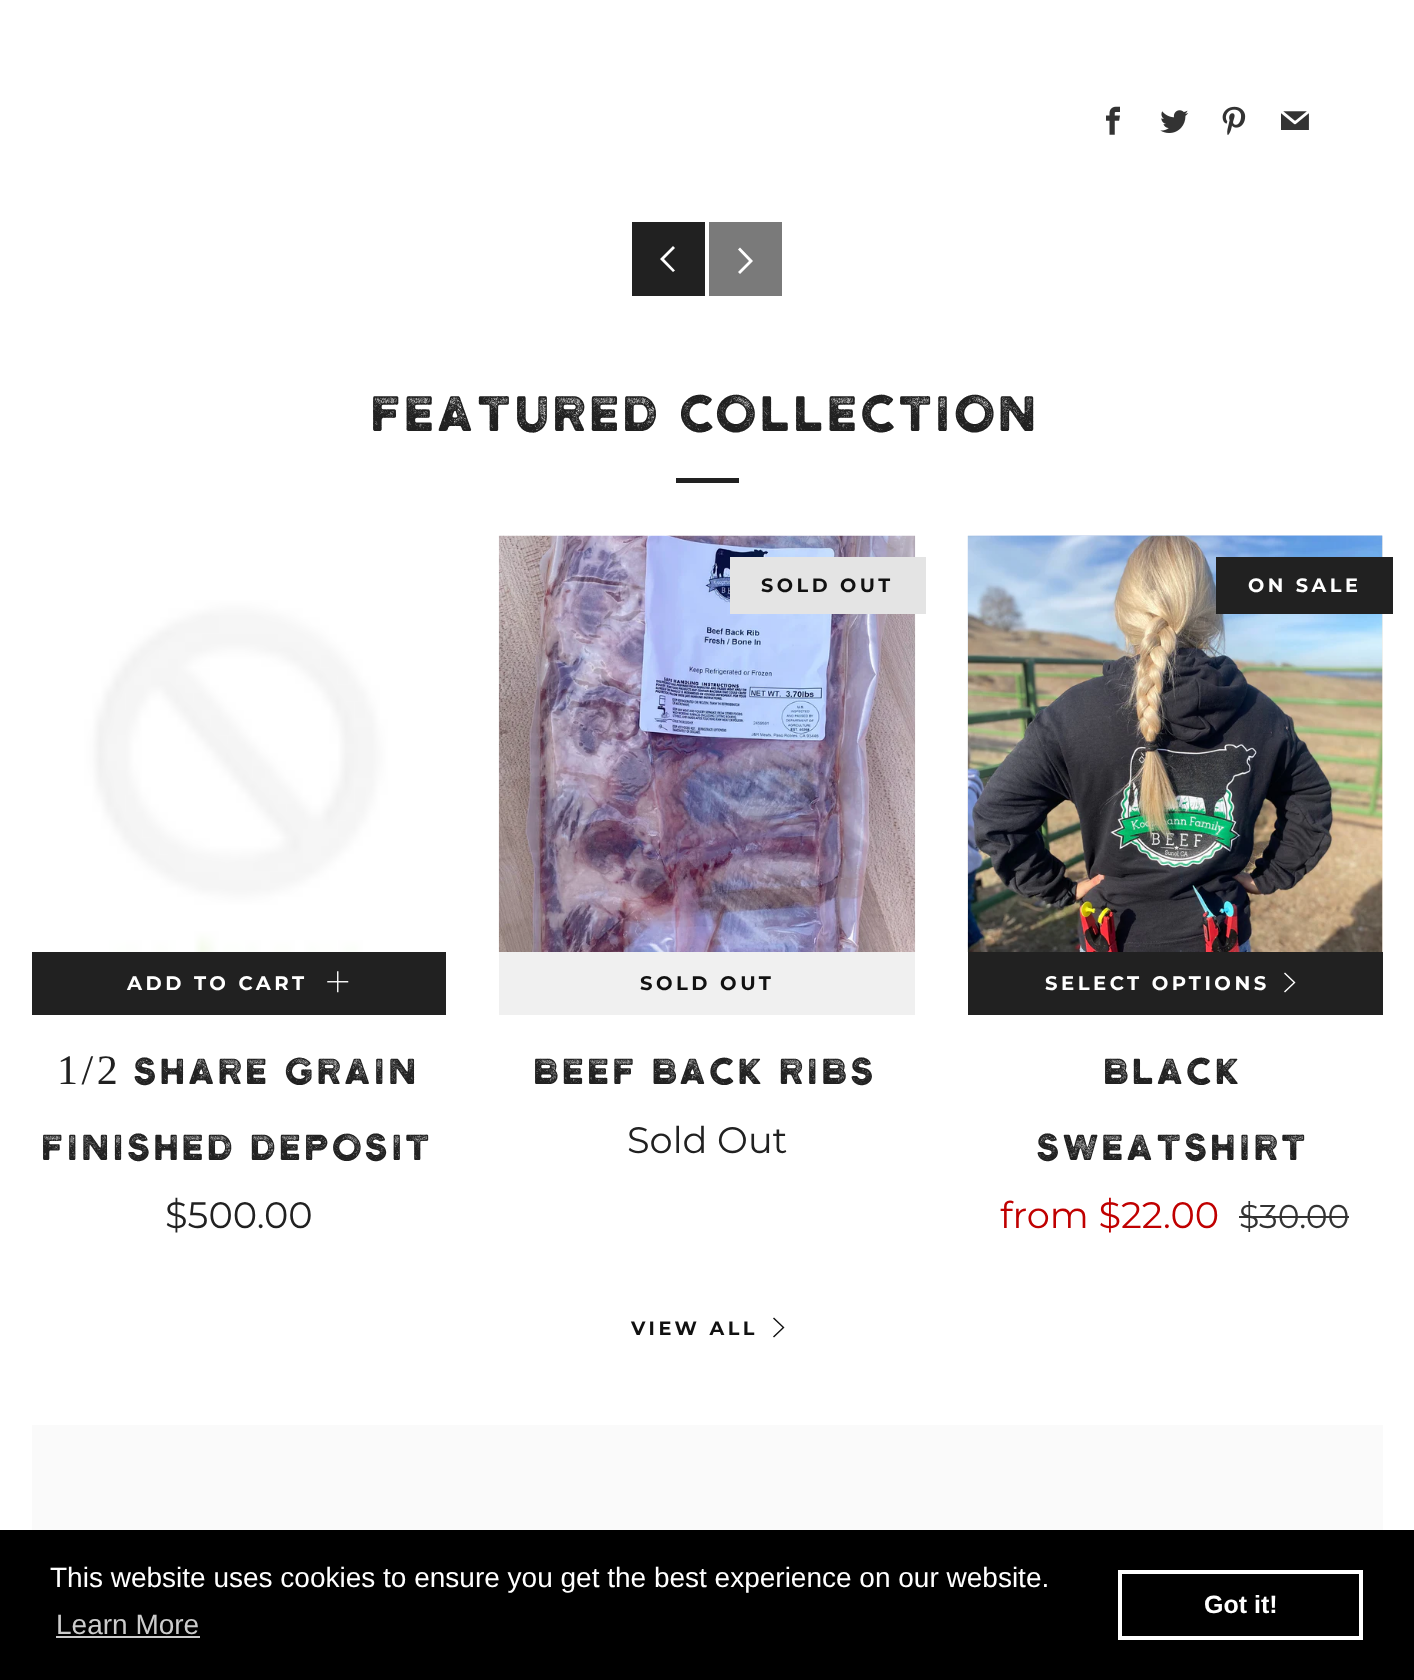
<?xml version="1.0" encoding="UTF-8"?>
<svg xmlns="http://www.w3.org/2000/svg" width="1414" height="1680">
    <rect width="100%" height="100%" fill="#FFFFFF"/>
    <image x="1106" y="106" width="14" height="29" href="img_01.png"/>
    <image x="1160" y="110" width="29" height="23" href="img_02.png"/>
    <image x="1222" y="106" width="24" height="29" href="img_03.png"/>
    <image x="1281" y="111" width="28" height="19" href="img_04.png"/>
    <rect x="632" y="222" width="73" height="74" fill="#212121"/>
    <path d="M 675 270.5 L 673 272 L 660 259 L 673 246 L 675 248 L 664 259 Z" fill="#FFFFFF"/>
    <rect x="709" y="222" width="73" height="74" fill="#7A7A7A"/>
    <path d="M 738 272 L 740 274 L 753 261 L 740 247.5 L 738 249.5 L 749 261 Z" fill="#FFFFFF"/>
    <text x="373" y="431" font-family="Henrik" font-size="57.75" letter-spacing="3.5" fill="#212121">FEATURED COLLECTION</text>
    <rect x="676" y="478" width="63" height="5" fill="#212121"/>
    <image x="32" y="536" width="414" height="416" href="img_05.png"/>
    <rect x="32" y="952" width="414" height="63" fill="#212121"/>
    <text x="127" y="990" font-family="Montserrat" font-size="19.6" font-weight="700" letter-spacing="3.5" fill="#FFFFFF">ADD TO CART</text>
    <image x="327" y="971" width="22" height="22" href="img_06.png"/>
    <text x="57" y="1084" font-family="Liberation Serif" font-size="42" letter-spacing="3.5" fill="#212121">1/2</text>
    <text x="135" y="1084" font-family="Henrik" font-size="42" letter-spacing="3.5" fill="#212121">SHARE GRAIN</text>
    <text x="43" y="1160" font-family="Henrik" font-size="42" letter-spacing="3.5" fill="#212121">FINISHED DEPOSIT</text>
    <text x="165" y="1228" font-family="Montserrat" font-size="36.75" fill="#212121">$500.00</text>
    <image x="498" y="535" width="418" height="417" href="img_07.png"/>
    <rect x="730" y="557" width="196" height="57" fill="#E4E4E4"/>
    <text x="761" y="592" font-family="Montserrat" font-size="19.25" font-weight="700" letter-spacing="3.5" fill="#111111">SOLD OUT</text>
    <rect x="499" y="952" width="416" height="63" fill="#F0F0F0"/>
    <text x="640" y="990" font-family="Montserrat" font-size="19.6" font-weight="700" letter-spacing="3.5" fill="#111111">SOLD OUT</text>
    <text x="535" y="1084" font-family="Henrik" font-size="42" letter-spacing="3.5" fill="#212121">BEEF BACK RIBS</text>
    <text x="627" y="1153" font-family="Montserrat" font-size="36.75" fill="#212121">Sold Out</text>
    <image x="967" y="535" width="416" height="417" href="img_08.png"/>
    <rect x="1382" y="536" width="1" height="416" fill="#F9F2EA"/>
    <image x="967" y="535" width="416" height="417" href="img_09.png"/>
    <rect x="1216" y="557" width="177" height="57" fill="#212121"/>
    <text x="1248" y="592" font-family="Montserrat" font-size="19.25" font-weight="700" letter-spacing="3.5" fill="#FFFFFF">ON SALE</text>
    <rect x="968" y="952" width="415" height="63" fill="#212121"/>
    <text x="1045" y="990" font-family="Montserrat" font-size="19.6" font-weight="700" letter-spacing="3.5" fill="#FFFFFF">SELECT OPTIONS</text>
    <path d="M 1284 991.5 L 1285 992.5 L 1295.5 982.5 L 1285 972.5 L 1284 973.5 L 1293.5 982.5 Z" fill="#FFFFFF"/>
    <text x="1105" y="1084" font-family="Henrik" font-size="42" letter-spacing="3.5" fill="#212121">BLACK</text>
    <text x="1038" y="1160" font-family="Henrik" font-size="42" letter-spacing="3.5" fill="#212121">SWEATSHIRT</text>
    <text x="1000" y="1228" font-family="Montserrat" font-size="36.75" fill="#C00000">from $22.00</text>
    <text x="1239" y="1228" font-family="Montserrat" font-size="33" fill="#333333">$30.00</text>
    <rect x="1239" y="1216" width="110" height="2" fill="#333333"/>
    <text x="631" y="1335" font-family="Montserrat" font-size="19.25" font-weight="700" letter-spacing="3.5" fill="#111111">VIEW ALL</text>
    <path d="M 773 1336.5 L 774 1337.5 L 784.5 1327.5 L 774 1317.5 L 773 1318.5 L 782.5 1327.5 Z" fill="#111111"/>
    <rect x="32" y="1425" width="1351" height="105" fill="#FAFAFA"/>
    <rect x="0" y="1530" width="1414" height="150" fill="#000000"/>
    <text x="50" y="1587" font-family="Liberation Sans" font-size="28" fill="#FFFFFF">This website uses cookies to ensure you get the best experience on our website.</text>
    <text x="56" y="1634" font-family="Liberation Sans" font-size="28" fill="#CCCCCC">Learn More</text>
    <rect x="56" y="1636" width="144" height="2" fill="#CCCCCC"/>
    <rect x="1120" y="1572" width="241" height="66" fill="none" stroke="#FFFFFF" stroke-width="4"/>
    <text x="1204" y="1613" font-family="Liberation Sans" font-size="25" font-weight="700" fill="#FFFFFF">Got it!</text>
</svg>
